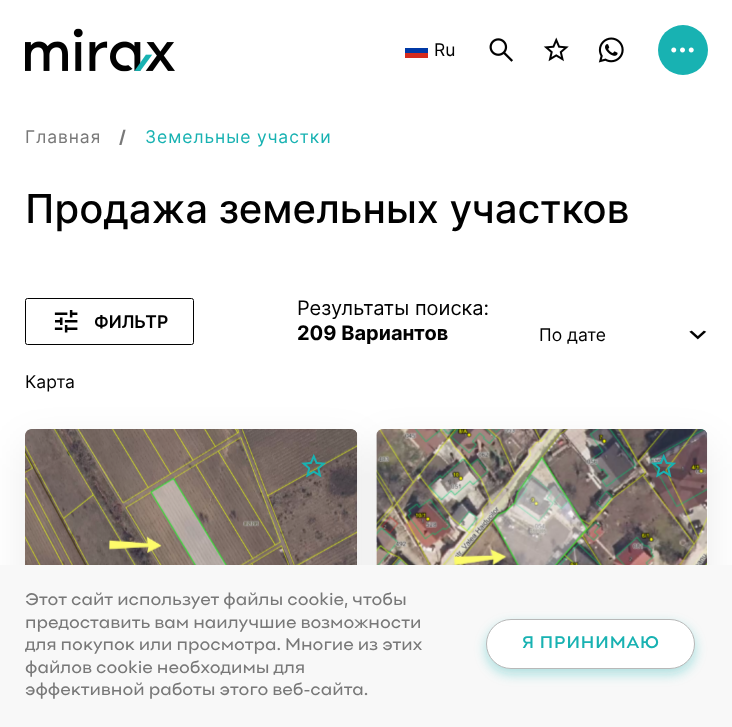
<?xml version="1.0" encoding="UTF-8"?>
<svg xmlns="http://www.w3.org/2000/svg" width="732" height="727">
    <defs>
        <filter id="blur1" x="-50%" y="-200%" width="200%" height="500%"><feGaussianBlur stdDeviation="20"/></filter>
        <filter id="blur2" x="-50%" y="-200%" width="200%" height="500%"><feGaussianBlur stdDeviation="14"/></filter>
        <filter id="blur3" x="-50%" y="-200%" width="200%" height="500%"><feGaussianBlur stdDeviation="6"/></filter>
    </defs>
    <rect width="100%" height="100%" fill="#FFFFFF"/>
    <image x="25" y="28" width="150" height="44" href="img_01.png"/>
    <rect x="405" y="53" width="23" height="5" fill="#D52B1E"/>
    <rect x="405" y="48" width="23" height="5" fill="#0039A6"/>
    <text x="434" y="56" font-family="Inter" font-size="17.5" fill="#010101">Ru</text>
    <image x="489" y="38" width="24" height="24" href="img_02.png"/>
    <image x="543" y="37" width="26" height="25" href="img_03.png"/>
    <image x="598" y="37" width="26" height="26" href="img_04.png"/>
    <circle cx="683" cy="50" r="25" fill="#18B2B2"/>
    <image x="671" y="47" width="23" height="6" href="img_05.png"/>
    <text x="25" y="143" font-family="Inter" font-size="17.5" letter-spacing="0.9" fill="#787878">Главная</text>
    <text x="119" y="143" font-family="Inter" font-size="17.5" font-weight="700" letter-spacing="0.9" fill="#787878">/</text>
    <text x="145" y="143" font-family="Inter" font-size="17.5" letter-spacing="0.9" fill="#18B2B2">Земельные участки</text>
    <text x="25" y="223" font-family="Inter" font-size="40" font-weight="500" fill="#010101">Продажа земельных участков</text>
    <rect x="25.5" y="298.5" width="168" height="46" rx="2" fill="none" stroke="#010101"/>
    <image x="54" y="310" width="24" height="23" href="img_06.png"/>
    <text x="94" y="328" font-family="Inter" font-size="17.5" font-weight="600" fill="#010101">ФИЛЬТР</text>
    <text x="297" y="315" font-family="Inter" font-size="20" fill="#010101">Результаты поиска:</text>
    <text x="297" y="340" font-family="Inter" font-size="20" font-weight="700" fill="#010101">209 Вариантов</text>
    <text x="539" y="341" font-family="Inter" font-size="17.5" fill="#010101">По дате</text>
    <image x="689" y="330" width="18" height="10" href="img_07.png"/>
    <text x="25" y="388" font-family="Inter" font-size="17.5" fill="#010101">Карта</text>
    <rect x="25" y="444" width="333" height="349" rx="6" fill="#0D1749" fill-opacity="0.08" filter="url(#blur1)"/>
    <rect x="25" y="429" width="333" height="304" rx="6" fill="#FFFFFF"/>
    <rect x="376" y="444" width="332" height="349" rx="6" fill="#0D1749" fill-opacity="0.08" filter="url(#blur1)"/>
    <image x="25" y="429" width="333" height="136" href="img_08.png"/>
    <image x="301" y="454" width="25" height="24" href="img_09.png"/>
    <rect x="376" y="429" width="332" height="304" rx="6" fill="#FFFFFF"/>
    <image x="376" y="429" width="332" height="136" href="img_10.png"/>
    <image x="651" y="454" width="25" height="24" href="img_11.png"/>
    <rect x="589" y="573" width="125" height="125" rx="62.5" fill="#000000" fill-opacity="0.25" filter="url(#blur2)"/>
    <rect x="0" y="565" width="732" height="162" fill="#F8F8F8"/>
    <text font-family="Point" font-size="17.5" fill="#787878">
        <tspan x="25" y="605">Этот сайт использует файлы cookie, чтобы</tspan>
        <tspan x="25" y="628">предоставить вам наилучшие возможности</tspan>
        <tspan x="25" y="650">для покупок или просмотра. Многие из этих</tspan>
        <tspan x="25" y="673">файлов cookie необходимы для</tspan>
        <tspan x="25" y="695">эффективной работы этого веб-сайта.</tspan>
    </text>
    <rect x="486" y="624" width="209" height="50" rx="25" fill="#18B2B2" fill-opacity="0.35" filter="url(#blur3)"/>
    <rect x="486.5" y="619.5" width="208" height="49" rx="24.5" fill="#FFFFFF" stroke="#B8B8B8"/>
    <text x="522" y="648" font-family="Point" font-size="17.5" font-weight="600" letter-spacing="0.9" fill="#18B2B2">Я ПРИНИМАЮ</text>
</svg>
